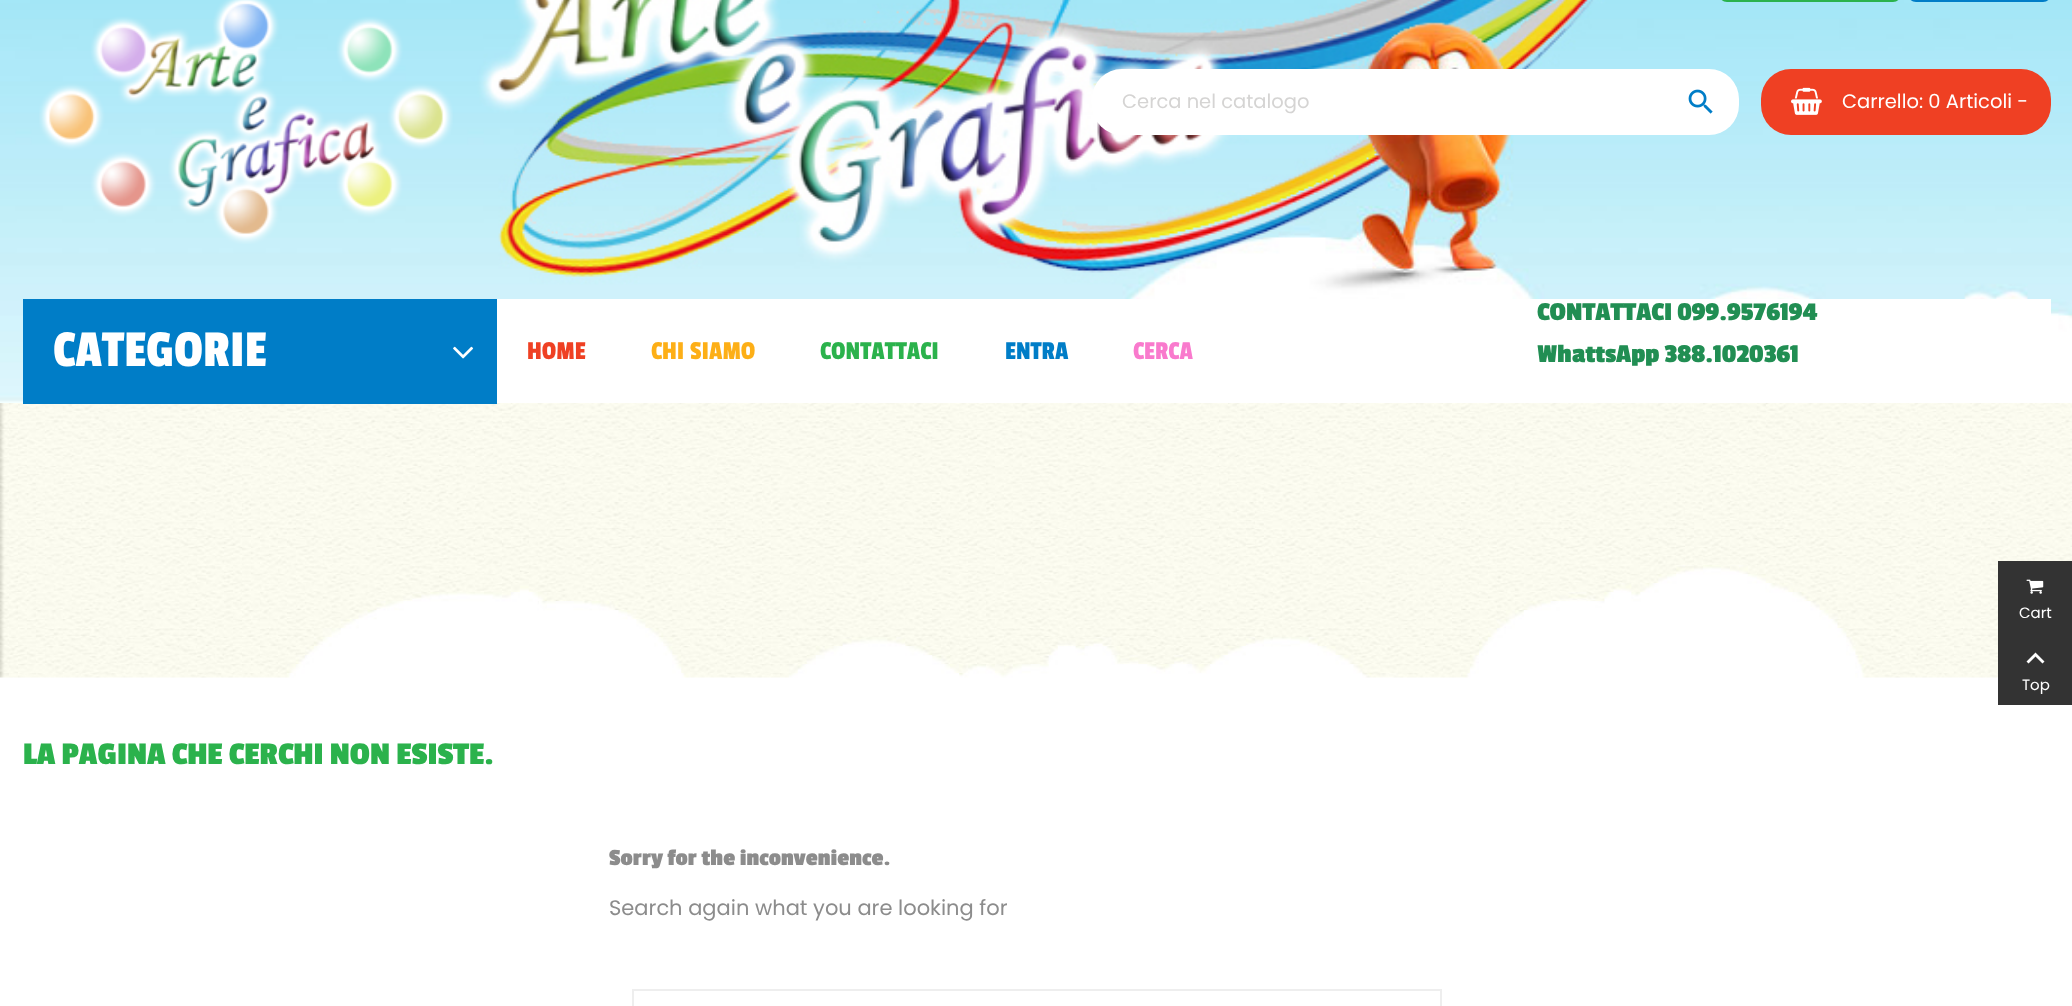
<?xml version="1.0" encoding="UTF-8"?>
<svg xmlns="http://www.w3.org/2000/svg" width="2072" height="1006">
    <rect width="100%" height="100%" fill="#FFFFFF"/>
    <image x="0" y="0" width="2072" height="403" href="img_01.png"/>
    <path d="M 1719 -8 H 1901 V -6 C 1901 -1.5 1897.5 2 1893 2 H 1727 C 1722.5 2 1719 -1.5 1719 -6 Z" fill="#2BB24C"/>
    <path d="M 1908 -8 H 2051 V -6 C 2051 -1.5 2047.5 2 2043 2 H 1916 C 1911.5 2 1908 -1.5 1908 -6 Z" fill="#007DC7"/>
    <image x="39" y="0" width="414" height="244" href="img_02.png"/>
    <rect x="1092" y="69" width="647" height="66" rx="30" fill="#FFFFFF"/>
    <text x="1122" y="108" font-family="Poppins" font-size="19.5" fill="#D5D4D3">Cerca nel catalogo</text>
    <image x="1688" y="89" width="25" height="25" href="img_03.png"/>
    <rect x="1761" y="69" width="290" height="66" rx="30" fill="#EF4023"/>
    <image x="1791" y="87" width="31" height="28" href="img_04.png"/>
    <text x="1842" y="108" font-family="Poppins" font-size="19.5" fill="#FFFFFF">Carrello: 0 Articoli -</text>
    <rect x="497" y="299" width="1554" height="104" fill="#FFFFFF"/>
    <image x="0" y="403" width="2072" height="275" href="img_07.png"/>
    <rect x="23" y="299" width="474" height="105" fill="#007DC7"/>
    <text x="53" y="366" font-family="Passion One" font-size="54" fill="#FFFFFF">CATEGORIE</text>
    <image x="453" y="346" width="21" height="13" href="img_05.png"/>
    <text x="527" y="359" font-family="Passion One" font-size="27" fill="#EF4023">HOME</text>
    <text x="651" y="359" font-family="Passion One" font-size="27" fill="#FDAF17">CHI SIAMO</text>
    <text x="820" y="359" font-family="Passion One" font-size="27" fill="#2BB24C">CONTATTACI</text>
    <text x="1005" y="359" font-family="Passion One" font-size="27" fill="#007DC7">ENTRA</text>
    <text x="1133" y="359" font-family="Passion One" font-size="27" fill="#F97ACD">CERCA</text>
    <text font-family="Passion One" font-size="27" font-weight="700" fill="#218E53">
        <tspan x="1537" y="320">CONTATTACI 099.9576194</tspan>
        <tspan x="1537" y="362">WhattsApp 388.1020361</tspan>
    </text>
    <rect x="1998" y="561" width="74" height="144" fill="#333333"/>
    <image x="2026" y="579" width="18" height="15" href="img_06.png"/>
    <text x="2019" y="618" font-family="Poppins" font-size="15" fill="#FFFFFF">Cart</text>
    <path d="M 2028.5 663.5 L 2026.5 661.5 L 2035.5 652.5 L 2044.5 661.5 L 2042.5 663.5 L 2035.5 656.5 Z" fill="#FFFFFF"/>
    <text x="2022" y="690" font-family="Poppins" font-size="15" fill="#FFFFFF">Top</text>
    <text x="23" y="764" font-family="Passion One" font-size="33" font-weight="700" fill="#2BB24C">LA PAGINA CHE CERCHI NON ESISTE.</text>
    <text x="609" y="865" font-family="Passion One" font-size="24" font-weight="700" fill="#8C8C8C">Sorry for the inconvenience.</text>
    <text x="609" y="915" font-family="Poppins" font-size="21" fill="#8C8C8C">Search again what you are looking for</text>
    <rect x="633" y="990" width="808" height="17" fill="none" stroke="#EEEEEE" stroke-width="2"/>
</svg>
